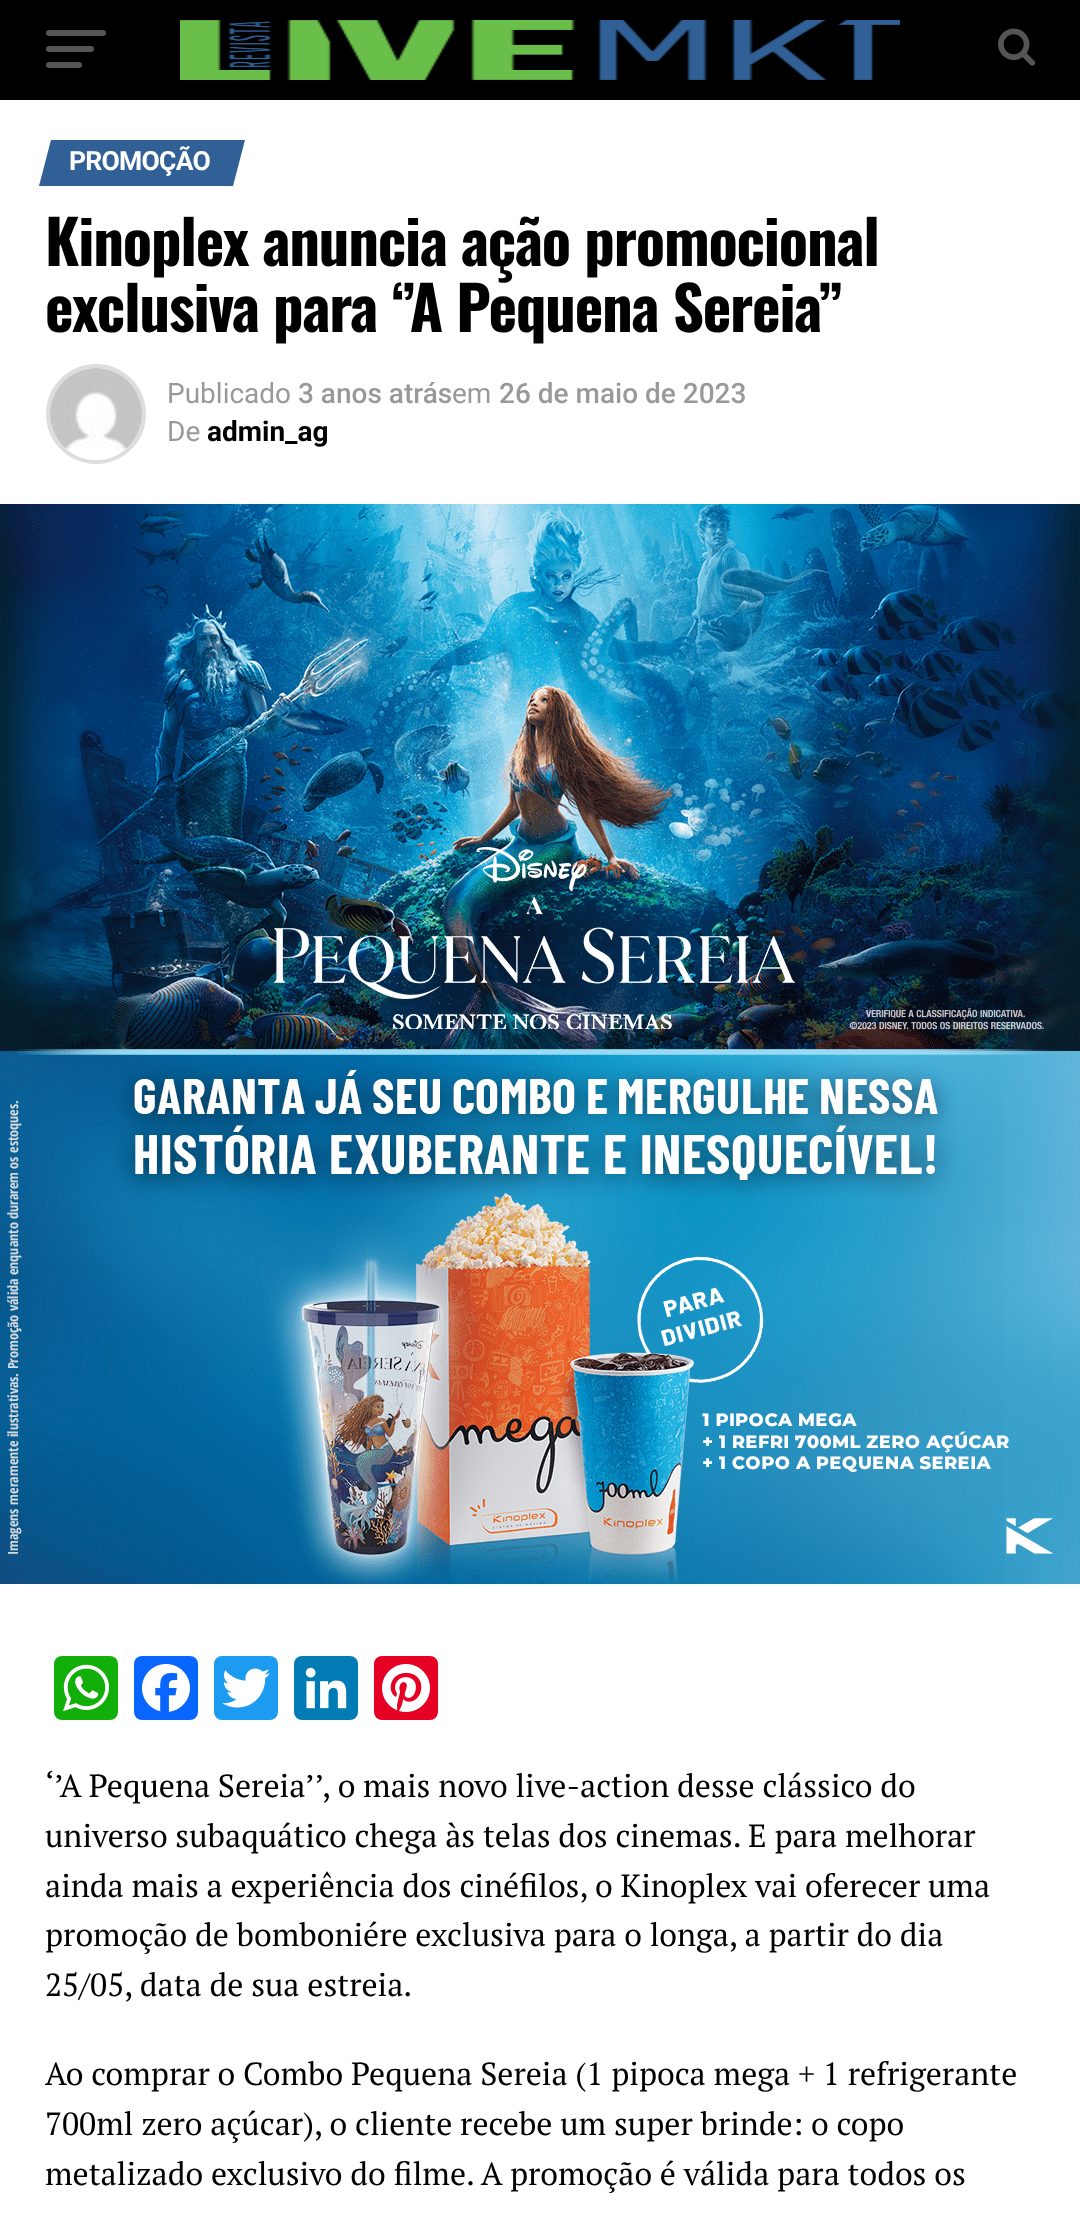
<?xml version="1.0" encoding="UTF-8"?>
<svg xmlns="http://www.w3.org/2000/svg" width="1080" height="2224">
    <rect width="100%" height="100%" fill="#000000"/>
    <rect x="46" y="30" width="60" height="6" rx="3" fill="#555555"/>
    <rect x="46" y="46" width="48" height="6" rx="3" fill="#555555"/>
    <rect x="46" y="62" width="36" height="6" rx="3" fill="#555555"/>
    <image x="180" y="20" width="720" height="60" href="img_01.png"/>
    <image x="998" y="28" width="38" height="38" href="img_02.png"/>
    <rect x="0" y="100" width="1080" height="2124" fill="#FFFFFF"/>
    <path d="M 51 140 H 245 L 233 186 H 39 Z" fill="#306095"/>
    <text x="69" y="170" font-family="Roboto" font-size="26.5" font-weight="700" letter-spacing="-0.75" fill="#FFFFFF">PROMOÇÃO</text>
    <text font-family="Oswald" font-size="60.75" font-weight="700" letter-spacing="-1.2" fill="#000000">
        <tspan x="45" y="266">Kinoplex anuncia ação promocional</tspan>
        <tspan x="45" y="332">exclusiva para ‘’A Pequena Sereia’’</tspan>
    </text>
    <circle cx="96" cy="414" r="48" fill="none" stroke="#DDDDDD" stroke-width="4"/>
    <image x="50" y="368" width="92" height="92" href="img_03.png"/>
    <text x="167" y="403" font-family="Roboto" font-size="28" fill="#999999">Publicado</text>
    <text x="298" y="403" font-family="Roboto" font-size="28" font-weight="500" fill="#999999">3 anos atrás</text>
    <text x="452" y="403" font-family="Roboto" font-size="28" fill="#999999">em</text>
    <text x="499" y="403" font-family="Roboto" font-size="28" font-weight="500" fill="#999999">26 de maio de 2023</text>
    <text x="167" y="441" font-family="Roboto" font-size="28" fill="#999999">De</text>
    <text x="207" y="441" font-family="Roboto" font-size="28" font-weight="700" fill="#000000">admin_ag</text>
    <image x="0" y="504" width="1080" height="1080" href="img_04.png"/>
    <rect x="54" y="1656" width="64" height="64" rx="8" fill="#12AF0A"/>
    <image x="63" y="1664" width="46" height="48" href="img_05.png"/>
    <rect x="134" y="1656" width="64" height="64" rx="8" fill="#0866FF"/>
    <image x="142" y="1664" width="48" height="48" href="img_06.png"/>
    <rect x="214" y="1656" width="64" height="64" rx="8" fill="#1D9BF0"/>
    <image x="222" y="1668" width="48" height="40" href="img_07.png"/>
    <rect x="294" y="1656" width="64" height="64" rx="8" fill="#007BB5"/>
    <image x="305" y="1667" width="42" height="42" href="img_08.png"/>
    <rect x="374" y="1656" width="64" height="64" rx="8" fill="#E60023"/>
    <image x="382" y="1664" width="48" height="48" href="img_09.png"/>
    <text font-family="PT Serif" font-size="32" fill="#000000">
        <tspan x="45" y="1797">‘’A Pequena Sereia’’, o mais novo live-action desse clássico do</tspan>
        <tspan x="45" y="1847">universo subaquático chega às telas dos cinemas. E para melhorar</tspan>
        <tspan x="45" y="1897">ainda mais a experiência dos cinéfilos, o Kinoplex vai oferecer uma</tspan>
        <tspan x="45" y="1946">promoção de bomboniére exclusiva para o longa, a partir do dia</tspan>
        <tspan x="45" y="1996">25/05, data de sua estreia.</tspan>
    </text>
    <text font-family="PT Serif" font-size="32" fill="#000000">
        <tspan x="45" y="2085">Ao comprar o Combo Pequena Sereia (1 pipoca mega + 1 refrigerante</tspan>
        <tspan x="45" y="2135">700ml zero açúcar), o cliente recebe um super brinde: o copo</tspan>
        <tspan x="45" y="2185">metalizado exclusivo do filme. A promoção é válida para todos os</tspan>
    </text>
</svg>
